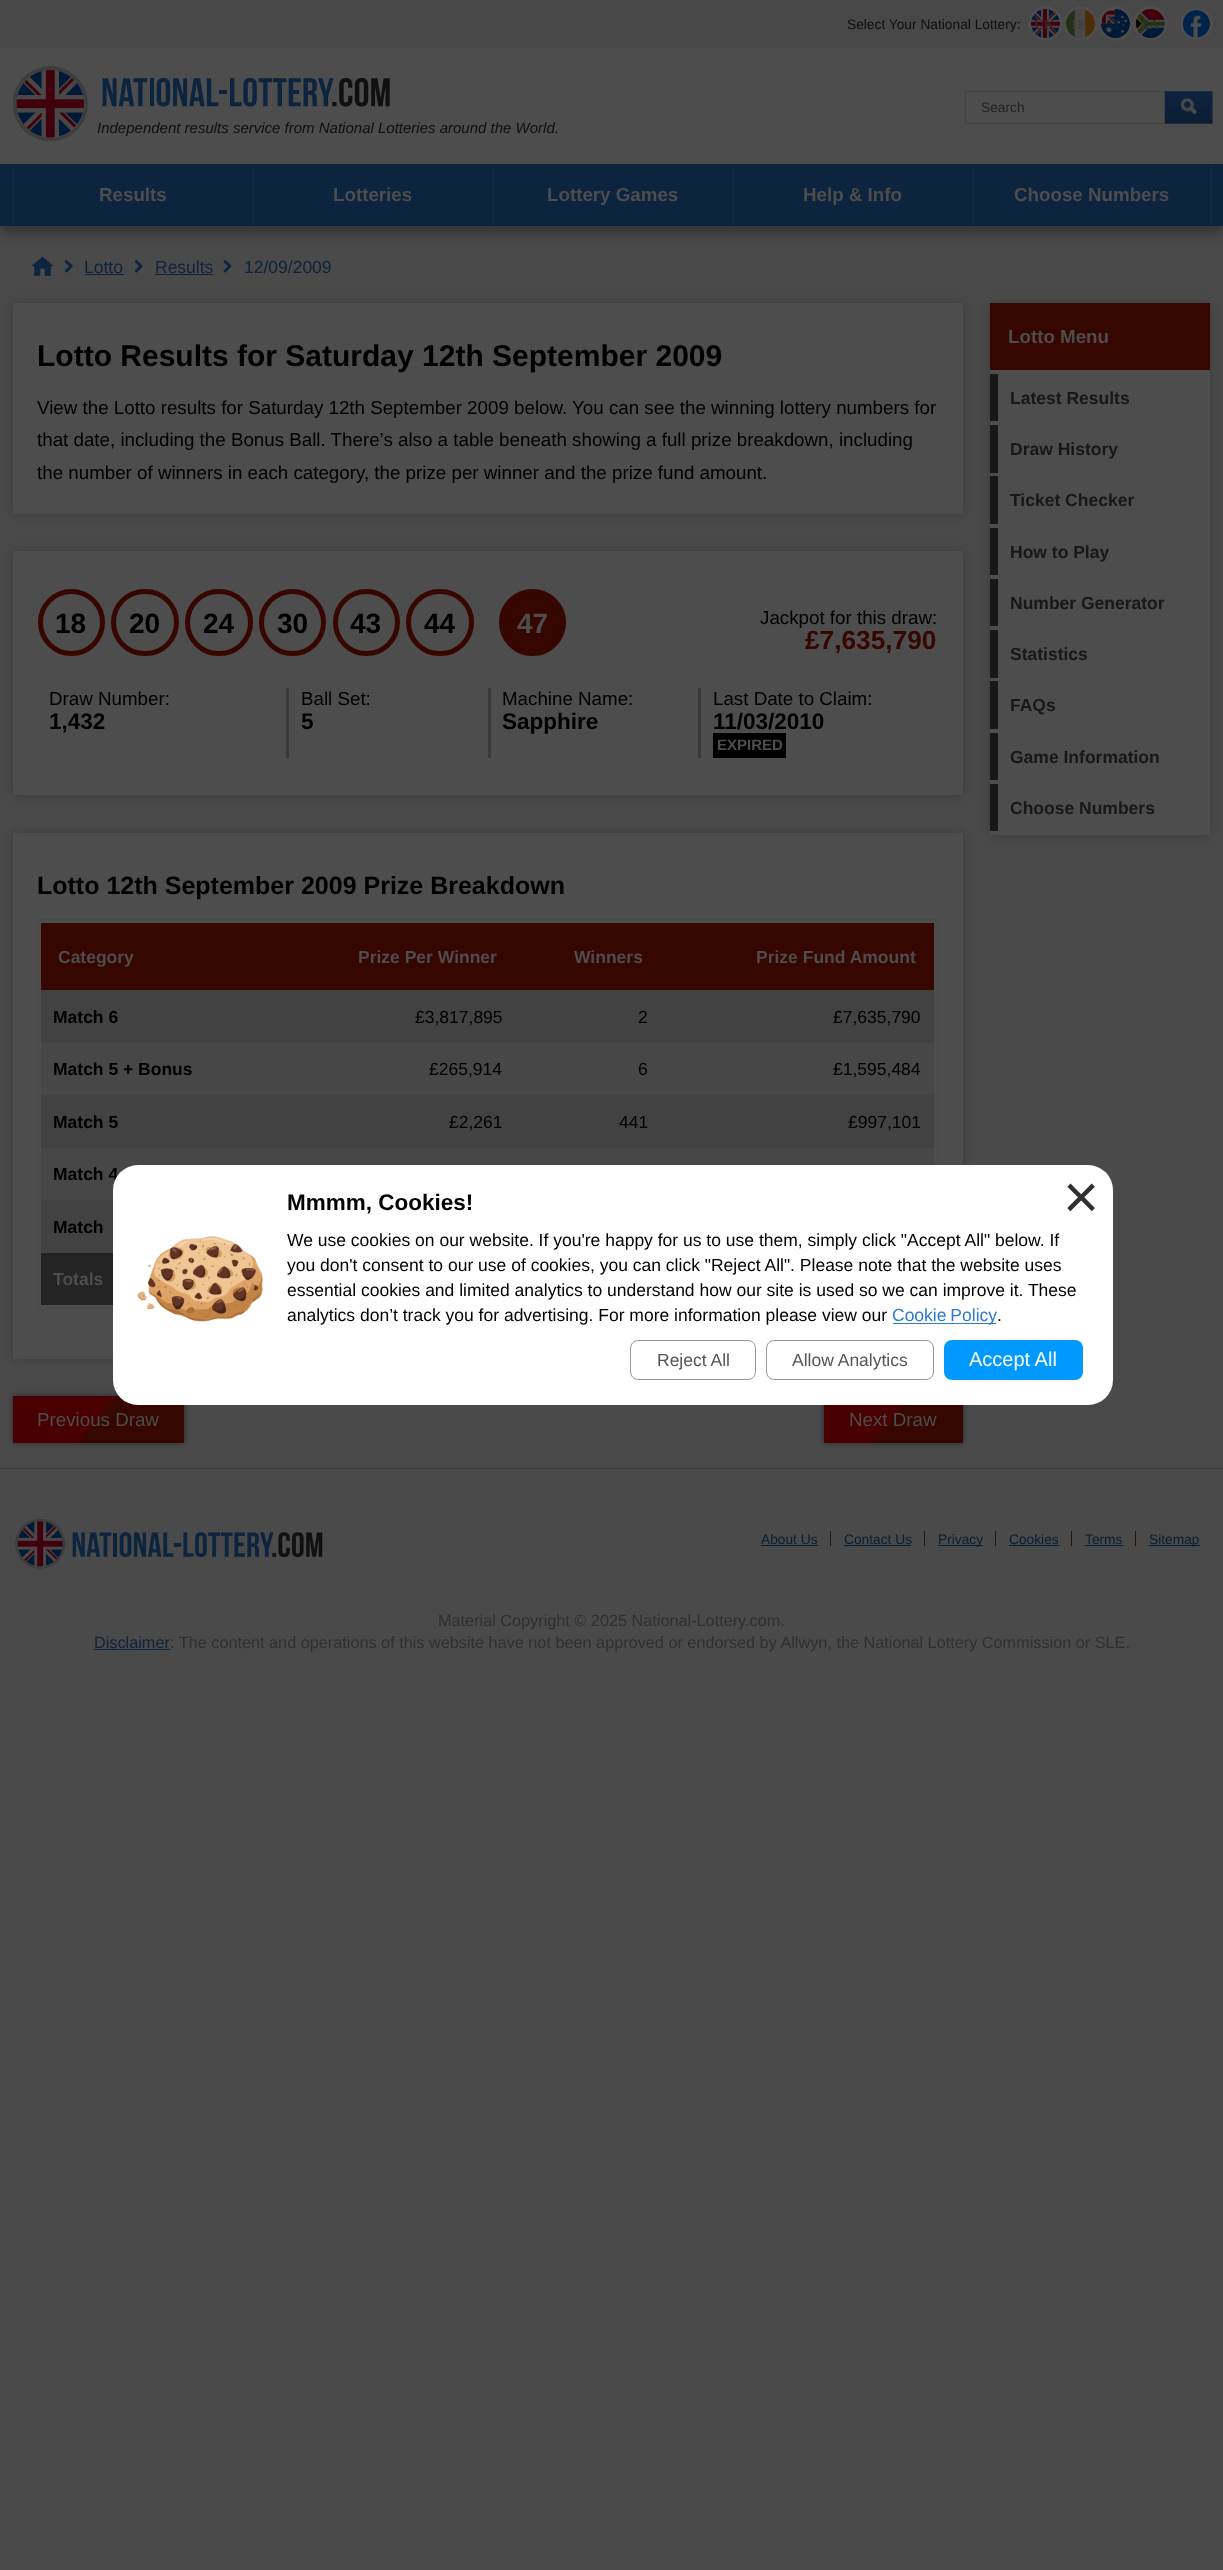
<?xml version="1.0" encoding="UTF-8"?>
<svg xmlns="http://www.w3.org/2000/svg" width="1223" height="2570">
    <defs>
        <filter id="blur1" x="-50%" y="-200%" width="200%" height="500%"><feGaussianBlur stdDeviation="6"/></filter>
        <filter id="blur2" x="-50%" y="-200%" width="200%" height="500%"><feGaussianBlur stdDeviation="3"/></filter>
        <linearGradient id="g1" gradientUnits="userSpaceOnUse" x1="36" y1="1368" x2="160" y2="1471"><stop offset="0" stop-color="#480000"/><stop offset="0.5" stop-color="#480000"/><stop offset="0.5" stop-color="#360601"/><stop offset="1" stop-color="#360601"/></linearGradient>
        <linearGradient id="g2" gradientUnits="userSpaceOnUse" x1="841" y1="1376" x2="945" y2="1463"><stop offset="0" stop-color="#480000"/><stop offset="0.5" stop-color="#480000"/><stop offset="0.5" stop-color="#360601"/><stop offset="1" stop-color="#360601"/></linearGradient>
    </defs>
    <rect width="100%" height="100%" fill="#4A4A4A"/>
    <rect x="0" y="6" width="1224" height="227" fill="#000000" fill-opacity="0.3" filter="url(#blur1)"/>
    <rect x="0" y="48" width="1223" height="116" fill="#4D4D4D"/>
    <rect x="0" y="1" width="1223" height="47" fill="#484848"/>
    <text x="847" y="29" font-family="Liberation Sans" font-size="13.75" fill="#0F0F0F">Select Your National Lottery:</text>
    <image x="1031" y="9" width="29" height="29" href="img_01.png"/>
    <circle cx="1045.5" cy="23.5" r="16" fill="none" stroke="#4D4D4D" stroke-width="3"/>
    <text x="1034" y="29" font-family="Liberation Serif" font-size="13.75" font-weight="700" fill="#412129">UK</text>
    <image x="1066" y="9" width="29" height="29" href="img_02.png"/>
    <circle cx="1080.5" cy="23.5" r="16" fill="none" stroke="#4D4D4D" stroke-width="3"/>
    <text x="1072" y="29" font-family="Liberation Serif" font-size="13.75" font-weight="700" fill="#404239">IE</text>
    <image x="1101" y="9" width="29" height="29" href="img_03.png"/>
    <circle cx="1115.5" cy="23.5" r="16" fill="none" stroke="#4D4D4D" stroke-width="3"/>
    <text x="1104" y="29" font-family="Liberation Serif" font-size="13.75" font-weight="700" fill="#0B2039">AU</text>
    <image x="1136" y="9" width="29" height="29" href="img_04.png"/>
    <circle cx="1150.5" cy="23.5" r="16" fill="none" stroke="#4D4D4D" stroke-width="3"/>
    <text x="1140" y="29" font-family="Liberation Serif" font-size="13.75" font-weight="700" fill="#2C3525">ZA</text>
    <rect x="1180" y="8" width="33" height="32" rx="16" fill="#4D4D4D"/>
    <image x="1183" y="10" width="27" height="28" href="img_05.png"/>
    <rect x="965.5" y="91.5" width="199" height="32" fill="none" stroke="#424242"/>
    <text x="981" y="112" font-family="Liberation Sans" font-size="13.75" fill="#232323">Search</text>
    <image x="1165" y="91" width="48" height="33" href="img_06.png"/>
    <image x="13" y="66" width="377" height="75" href="img_07.png"/>
    <text x="97" y="133" font-family="Liberation Sans" font-size="15" font-style="italic" fill="#0F0F0F">Independent results service from National Lotteries around the World.</text>
    <rect x="0" y="164" width="1223" height="62" fill="#0D243F"/>
    <rect x="13" y="164" width="1" height="62" fill="#122B47"/>
    <text x="99" y="201" font-family="Liberation Sans" font-size="18.75" font-weight="700" fill="#4D4D4D">Results</text>
    <rect x="253" y="164" width="1" height="62" fill="#122B47"/>
    <text x="333" y="201" font-family="Liberation Sans" font-size="18.75" font-weight="700" fill="#4D4D4D">Lotteries</text>
    <rect x="493" y="164" width="1" height="62" fill="#122B47"/>
    <text x="547" y="201" font-family="Liberation Sans" font-size="18.75" font-weight="700" fill="#4D4D4D">Lottery Games</text>
    <rect x="733" y="164" width="1" height="62" fill="#122B47"/>
    <text x="803" y="201" font-family="Liberation Sans" font-size="18.75" font-weight="700" fill="#4D4D4D">Help &amp; Info</text>
    <rect x="1211" y="164" width="1" height="62" fill="#122B47"/>
    <rect x="973" y="164" width="1" height="62" fill="#122B47"/>
    <text x="1014" y="201" font-family="Liberation Sans" font-size="18.75" font-weight="700" fill="#4D4D4D">Choose Numbers</text>
    <image x="31" y="256" width="23" height="20" href="img_08.png"/>
    <image x="64" y="260" width="9" height="13" href="img_09.png"/>
    <text x="84" y="273" font-family="Liberation Sans" font-size="17.5" fill="#0D243F">Lotto</text>
    <rect x="85" y="274" width="39" height="1" fill="#0D243F"/>
    <image x="134" y="260" width="9" height="13" href="img_09.png"/>
    <text x="155" y="273" font-family="Liberation Sans" font-size="17.5" fill="#0D243F">Results</text>
    <rect x="155" y="274" width="58" height="1" fill="#0D243F"/>
    <image x="223" y="260" width="9" height="13" href="img_10.png"/>
    <text x="244" y="273" font-family="Liberation Sans" font-size="17.5" fill="#0D243F">12/09/2009</text>
    <rect x="13" y="303" width="950" height="211" fill="#000000" fill-opacity="0.2" filter="url(#blur1)"/>
    <rect x="13" y="303" width="950" height="211" fill="#4D4D4D"/>
    <text x="37" y="366" font-family="Liberation Sans" font-size="30" font-weight="700" fill="#000000">Lotto Results for Saturday 12th September 2009</text>
    <text font-family="Liberation Sans" font-size="18.75" fill="#000000">
        <tspan x="37" y="414">View the Lotto results for Saturday 12th September 2009 below. You can see the winning lottery numbers for</tspan>
        <tspan x="37" y="446">that date, including the Bonus Ball. There’s also a table beneath showing a full prize breakdown, including</tspan>
        <tspan x="37" y="479">the number of winners in each category, the prize per winner and the prize fund amount.</tspan>
    </text>
    <rect x="13" y="551" width="950" height="244" fill="#000000" fill-opacity="0.2" filter="url(#blur1)"/>
    <rect x="13" y="551" width="950" height="244" fill="#4D4D4D"/>
    <circle cx="71.5" cy="622.5" r="31" fill="none" stroke="#360601" stroke-width="5"/>
    <text x="55" y="633" font-family="Liberation Sans" font-size="28" font-weight="700" fill="#000000">18</text>
    <rect x="113.5" y="591.5" width="63" height="62" rx="31" fill="none" stroke="#360601" stroke-width="5"/>
    <text x="129" y="633" font-family="Liberation Sans" font-size="28" font-weight="700" fill="#000000">20</text>
    <rect x="187.5" y="591.5" width="63" height="62" rx="31" fill="none" stroke="#360601" stroke-width="5"/>
    <text x="203" y="633" font-family="Liberation Sans" font-size="28" font-weight="700" fill="#000000">24</text>
    <circle cx="292.5" cy="622.5" r="31" fill="none" stroke="#360601" stroke-width="5"/>
    <text x="277" y="633" font-family="Liberation Sans" font-size="28" font-weight="700" fill="#000000">30</text>
    <circle cx="366.5" cy="622.5" r="31" fill="none" stroke="#360601" stroke-width="5"/>
    <text x="350" y="633" font-family="Liberation Sans" font-size="28" font-weight="700" fill="#000000">43</text>
    <rect x="408.5" y="591.5" width="63" height="62" rx="31" fill="none" stroke="#360601" stroke-width="5"/>
    <text x="424" y="633" font-family="Liberation Sans" font-size="28" font-weight="700" fill="#000000">44</text>
    <circle cx="532.5" cy="622.5" r="31" fill="#360601" stroke="#360601" stroke-width="5"/>
    <text x="517" y="633" font-family="Liberation Sans" font-size="28" font-weight="700" fill="#4D4D4D">47</text>
    <text x="760" y="624" font-family="Liberation Sans" font-size="18.75" fill="#000000">Jackpot for this draw:</text>
    <text x="805" y="649" font-family="Liberation Sans" font-size="26.25" font-weight="700" fill="#360601">£7,635,790</text>
    <text x="49" y="705" font-family="Liberation Sans" font-size="18.75" fill="#000000">Draw Number:</text>
    <text x="49" y="729" font-family="Liberation Sans" font-size="22.5" font-weight="700" fill="#000000">1,432</text>
    <rect x="286" y="688" width="3" height="70" fill="#393939"/>
    <text x="301" y="705" font-family="Liberation Sans" font-size="18.75" fill="#000000">Ball Set:</text>
    <text x="301" y="729" font-family="Liberation Sans" font-size="22.5" font-weight="700" fill="#000000">5</text>
    <rect x="488" y="688" width="3" height="70" fill="#393939"/>
    <text x="502" y="705" font-family="Liberation Sans" font-size="18.75" fill="#000000">Machine Name:</text>
    <text x="502" y="729" font-family="Liberation Sans" font-size="22.5" font-weight="700" fill="#000000">Sapphire</text>
    <rect x="698" y="688" width="3" height="70" fill="#393939"/>
    <text x="713" y="705" font-family="Liberation Sans" font-size="18.75" fill="#000000">Last Date to Claim:</text>
    <text x="713" y="729" font-family="Liberation Sans" font-size="22.5" font-weight="700" fill="#000000">11/03/2010</text>
    <rect x="713" y="733" width="73" height="25" fill="#000000"/>
    <text x="717" y="750" font-family="Liberation Sans" font-size="15" font-weight="700" fill="#4D4D4D">EXPIRED</text>
    <rect x="13" y="833" width="950" height="526" fill="#000000" fill-opacity="0.2" filter="url(#blur1)"/>
    <rect x="13" y="833" width="950" height="526" fill="#4D4D4D"/>
    <text x="37" y="894" font-family="Liberation Sans" font-size="25" font-weight="700" fill="#000000">Lotto 12th September 2009 Prize Breakdown</text>
    <rect x="38.5" y="919.5" width="899" height="389" fill="none" stroke="#494949"/>
    <rect x="41" y="923" width="893" height="67" fill="#360601"/>
    <text x="58" y="963" font-family="Liberation Sans" font-size="17.5" font-weight="700" fill="#4D4D4D">Category</text>
    <text x="358" y="963" font-family="Liberation Sans" font-size="17.5" font-weight="700" fill="#4D4D4D">Prize Per Winner</text>
    <text x="574" y="963" font-family="Liberation Sans" font-size="17.5" font-weight="700" fill="#4D4D4D">Winners</text>
    <text x="756" y="963" font-family="Liberation Sans" font-size="17.5" font-weight="700" fill="#4D4D4D">Prize Fund Amount</text>
    <rect x="41" y="990" width="893" height="53" fill="#424242"/>
    <text x="53" y="1023" font-family="Liberation Sans" font-size="17.5" font-weight="700" fill="#000000">Match 6</text>
    <text x="415" y="1023" font-family="Liberation Sans" font-size="17.5" fill="#000000">£3,817,895</text>
    <text x="638" y="1023" font-family="Liberation Sans" font-size="17.5" fill="#000000">2</text>
    <text x="833" y="1023" font-family="Liberation Sans" font-size="17.5" fill="#000000">£7,635,790</text>
    <rect x="41" y="1043" width="893" height="52" fill="#474747"/>
    <text x="53" y="1075" font-family="Liberation Sans" font-size="17.5" font-weight="700" fill="#000000">Match 5 + Bonus</text>
    <text x="429" y="1075" font-family="Liberation Sans" font-size="17.5" fill="#000000">£265,914</text>
    <text x="638" y="1075" font-family="Liberation Sans" font-size="17.5" fill="#000000">6</text>
    <text x="833" y="1075" font-family="Liberation Sans" font-size="17.5" fill="#000000">£1,595,484</text>
    <rect x="41" y="1095" width="893" height="53" fill="#424242"/>
    <text x="53" y="1128" font-family="Liberation Sans" font-size="17.5" font-weight="700" fill="#000000">Match 5</text>
    <text x="449" y="1128" font-family="Liberation Sans" font-size="17.5" fill="#000000">£2,261</text>
    <text x="619" y="1128" font-family="Liberation Sans" font-size="17.5" fill="#000000">441</text>
    <text x="848" y="1128" font-family="Liberation Sans" font-size="17.5" fill="#000000">£997,101</text>
    <rect x="271" y="1148" width="663" height="17" fill="#474747"/>
    <rect x="41" y="1148" width="230" height="52" fill="#474747"/>
    <text x="53" y="1180" font-family="Liberation Sans" font-size="17.5" font-weight="700" fill="#000000">Match 4</text>
    <rect x="41" y="1200" width="72" height="53" fill="#424242"/>
    <text x="53" y="1233" font-family="Liberation Sans" font-size="17.5" font-weight="700" fill="#000000">Match</text>
    <rect x="41" y="1253" width="72" height="52" fill="#242424"/>
    <text x="53" y="1285" font-family="Liberation Sans" font-size="17.5" font-weight="700" fill="#4D4D4D">Totals</text>
    <rect x="13" y="1396" width="171" height="47" fill="#000000" fill-opacity="0.5" filter="url(#blur2)"/>
    <rect x="13" y="1396" width="171" height="47" fill="url(#g1)"/>
    <text x="37" y="1426" font-family="Liberation Sans" font-size="18.75" fill="#4D4D4D">Previous Draw</text>
    <rect x="824" y="1396" width="139" height="47" fill="#000000" fill-opacity="0.5" filter="url(#blur2)"/>
    <rect x="824" y="1405" width="139" height="38" fill="url(#g2)"/>
    <text x="849" y="1426" font-family="Liberation Sans" font-size="18.75" fill="#4D4D4D">Next Draw</text>
    <rect x="990" y="303" width="220" height="532" fill="#000000" fill-opacity="0.2" filter="url(#blur1)"/>
    <rect x="990" y="370" width="220" height="465" fill="#4D4D4D"/>
    <rect x="990" y="303" width="220" height="67" fill="#360601"/>
    <text x="1008" y="343" font-family="Liberation Sans" font-size="18.75" font-weight="700" fill="#4D4D4D">Lotto Menu</text>
    <rect x="990" y="374" width="8" height="47" fill="#181818"/>
    <text x="1010" y="404" font-family="Liberation Sans" font-size="17.5" font-weight="700" fill="#181818">Latest Results</text>
    <rect x="990" y="425" width="8" height="48" fill="#181818"/>
    <text x="1010" y="455" font-family="Liberation Sans" font-size="17.5" font-weight="700" fill="#181818">Draw History</text>
    <rect x="990" y="476" width="8" height="48" fill="#181818"/>
    <text x="1010" y="506" font-family="Liberation Sans" font-size="17.5" font-weight="700" fill="#181818">Ticket Checker</text>
    <rect x="990" y="528" width="8" height="47" fill="#181818"/>
    <text x="1010" y="558" font-family="Liberation Sans" font-size="17.5" font-weight="700" fill="#181818">How to Play</text>
    <rect x="990" y="579" width="8" height="47" fill="#181818"/>
    <text x="1010" y="609" font-family="Liberation Sans" font-size="17.5" font-weight="700" fill="#181818">Number Generator</text>
    <rect x="990" y="630" width="8" height="48" fill="#181818"/>
    <text x="1010" y="660" font-family="Liberation Sans" font-size="17.5" font-weight="700" fill="#181818">Statistics</text>
    <rect x="990" y="681" width="8" height="48" fill="#181818"/>
    <text x="1010" y="711" font-family="Liberation Sans" font-size="17.5" font-weight="700" fill="#181818">FAQs</text>
    <rect x="990" y="733" width="8" height="47" fill="#181818"/>
    <text x="1010" y="763" font-family="Liberation Sans" font-size="17.5" font-weight="700" fill="#181818">Game Information</text>
    <rect x="990" y="784" width="8" height="47" fill="#181818"/>
    <text x="1010" y="814" font-family="Liberation Sans" font-size="17.5" font-weight="700" fill="#181818">Choose Numbers</text>
    <rect x="113" y="1165" width="1000" height="240" rx="25" fill="#FFFFFF"/>
    <image x="137" y="1236" width="126" height="86" href="img_11.png"/>
    <text x="287" y="1210" font-family="Liberation Sans" font-size="22.5" font-weight="700" fill="#000000">Mmmm, Cookies!</text>
    <text font-family="Liberation Sans" font-size="17.5" fill="#000000">
        <tspan x="287" y="1246">We use cookies on our website. If you're happy for us to use them, simply click "Accept All" below. If</tspan>
        <tspan x="287" y="1271">you don't consent to our use of cookies, you can click "Reject All". Please note that the website uses</tspan>
        <tspan x="287" y="1296">essential cookies and limited analytics to understand how our site is used so we can improve it. These</tspan>
        <tspan x="287" y="1321">analytics don’t track you for advertising. For more information please view our</tspan>
    </text>
    <rect x="893" y="1323" width="103" height="1" fill="#2C79D2"/>
    <text x="892" y="1321" word-spacing="-1" font-family="Liberation Sans" font-size="17.5" fill="#2C79D2">Cookie Policy</text>
    <text x="997" y="1321" font-family="Liberation Sans" font-size="17.5" fill="#000000">.</text>
    <rect x="630.5" y="1340.5" width="125" height="39" rx="7.5" fill="none" stroke="#999999"/>
    <text x="657" y="1366" font-family="Liberation Sans" font-size="17.5" fill="#555555">Reject All</text>
    <rect x="766.5" y="1340.5" width="167" height="39" rx="7.5" fill="none" stroke="#999999"/>
    <text x="792" y="1366" font-family="Liberation Sans" font-size="17.5" fill="#555555">Allow Analytics</text>
    <rect x="944" y="1340" width="139" height="40" rx="8" fill="#0099FF"/>
    <text x="969" y="1366" font-family="Liberation Sans" font-size="20" fill="#FFFFFF">Accept All</text>
    <text x="1063" y="1218" font-family="Liberation Sans" font-size="62" fill="#303030">×</text>
    <rect x="0" y="1468" width="1223" height="1" fill="#3D3D3D"/>
    <image x="15" y="1519" width="308" height="50" href="img_12.png"/>
    <text x="761" y="1544" font-family="Liberation Sans" font-size="13.75" fill="#051F35">About Us</text>
    <rect x="761" y="1545" width="57" height="1" fill="#051F35"/>
    <rect x="830" y="1531" width="1" height="15" fill="#1A1A1A"/>
    <text x="844" y="1544" font-family="Liberation Sans" font-size="13.75" fill="#051F35">Contact Us</text>
    <rect x="844" y="1545" width="67" height="1" fill="#051F35"/>
    <rect x="924" y="1531" width="1" height="15" fill="#1A1A1A"/>
    <rect x="938" y="1545" width="45" height="1" fill="#051F35"/>
    <text x="938" y="1544" font-family="Liberation Sans" font-size="13.75" fill="#051F35">Privacy</text>
    <rect x="995" y="1531" width="1" height="15" fill="#1A1A1A"/>
    <text x="1009" y="1544" font-family="Liberation Sans" font-size="13.75" fill="#051F35">Cookies</text>
    <rect x="1009" y="1545" width="50" height="1" fill="#051F35"/>
    <rect x="1071" y="1531" width="1" height="15" fill="#1A1A1A"/>
    <text x="1085" y="1544" font-family="Liberation Sans" font-size="13.75" fill="#051F35">Terms</text>
    <rect x="1085" y="1545" width="38" height="1" fill="#051F35"/>
    <rect x="1135" y="1531" width="1" height="15" fill="#1A1A1A"/>
    <rect x="1149" y="1545" width="51" height="1" fill="#051F35"/>
    <text x="1149" y="1544" font-family="Liberation Sans" font-size="13.75" fill="#051F35">Sitemap</text>
    <text x="438" y="1626" font-family="Liberation Sans" font-size="16.25" fill="#303030">Material Copyright © 2025 National-Lottery.com.</text>
    <text x="94" y="1648" font-family="Liberation Sans" font-size="16.25" fill="#0D243F">Disclaimer</text>
    <rect x="94" y="1649" width="76" height="1" fill="#0D243F"/>
    <text x="170" y="1648" font-family="Liberation Sans" font-size="16.25" fill="#303030">: The content and operations of this website have not been approved or endorsed by Allwyn, the National Lottery Commission or SLE.</text>
</svg>
